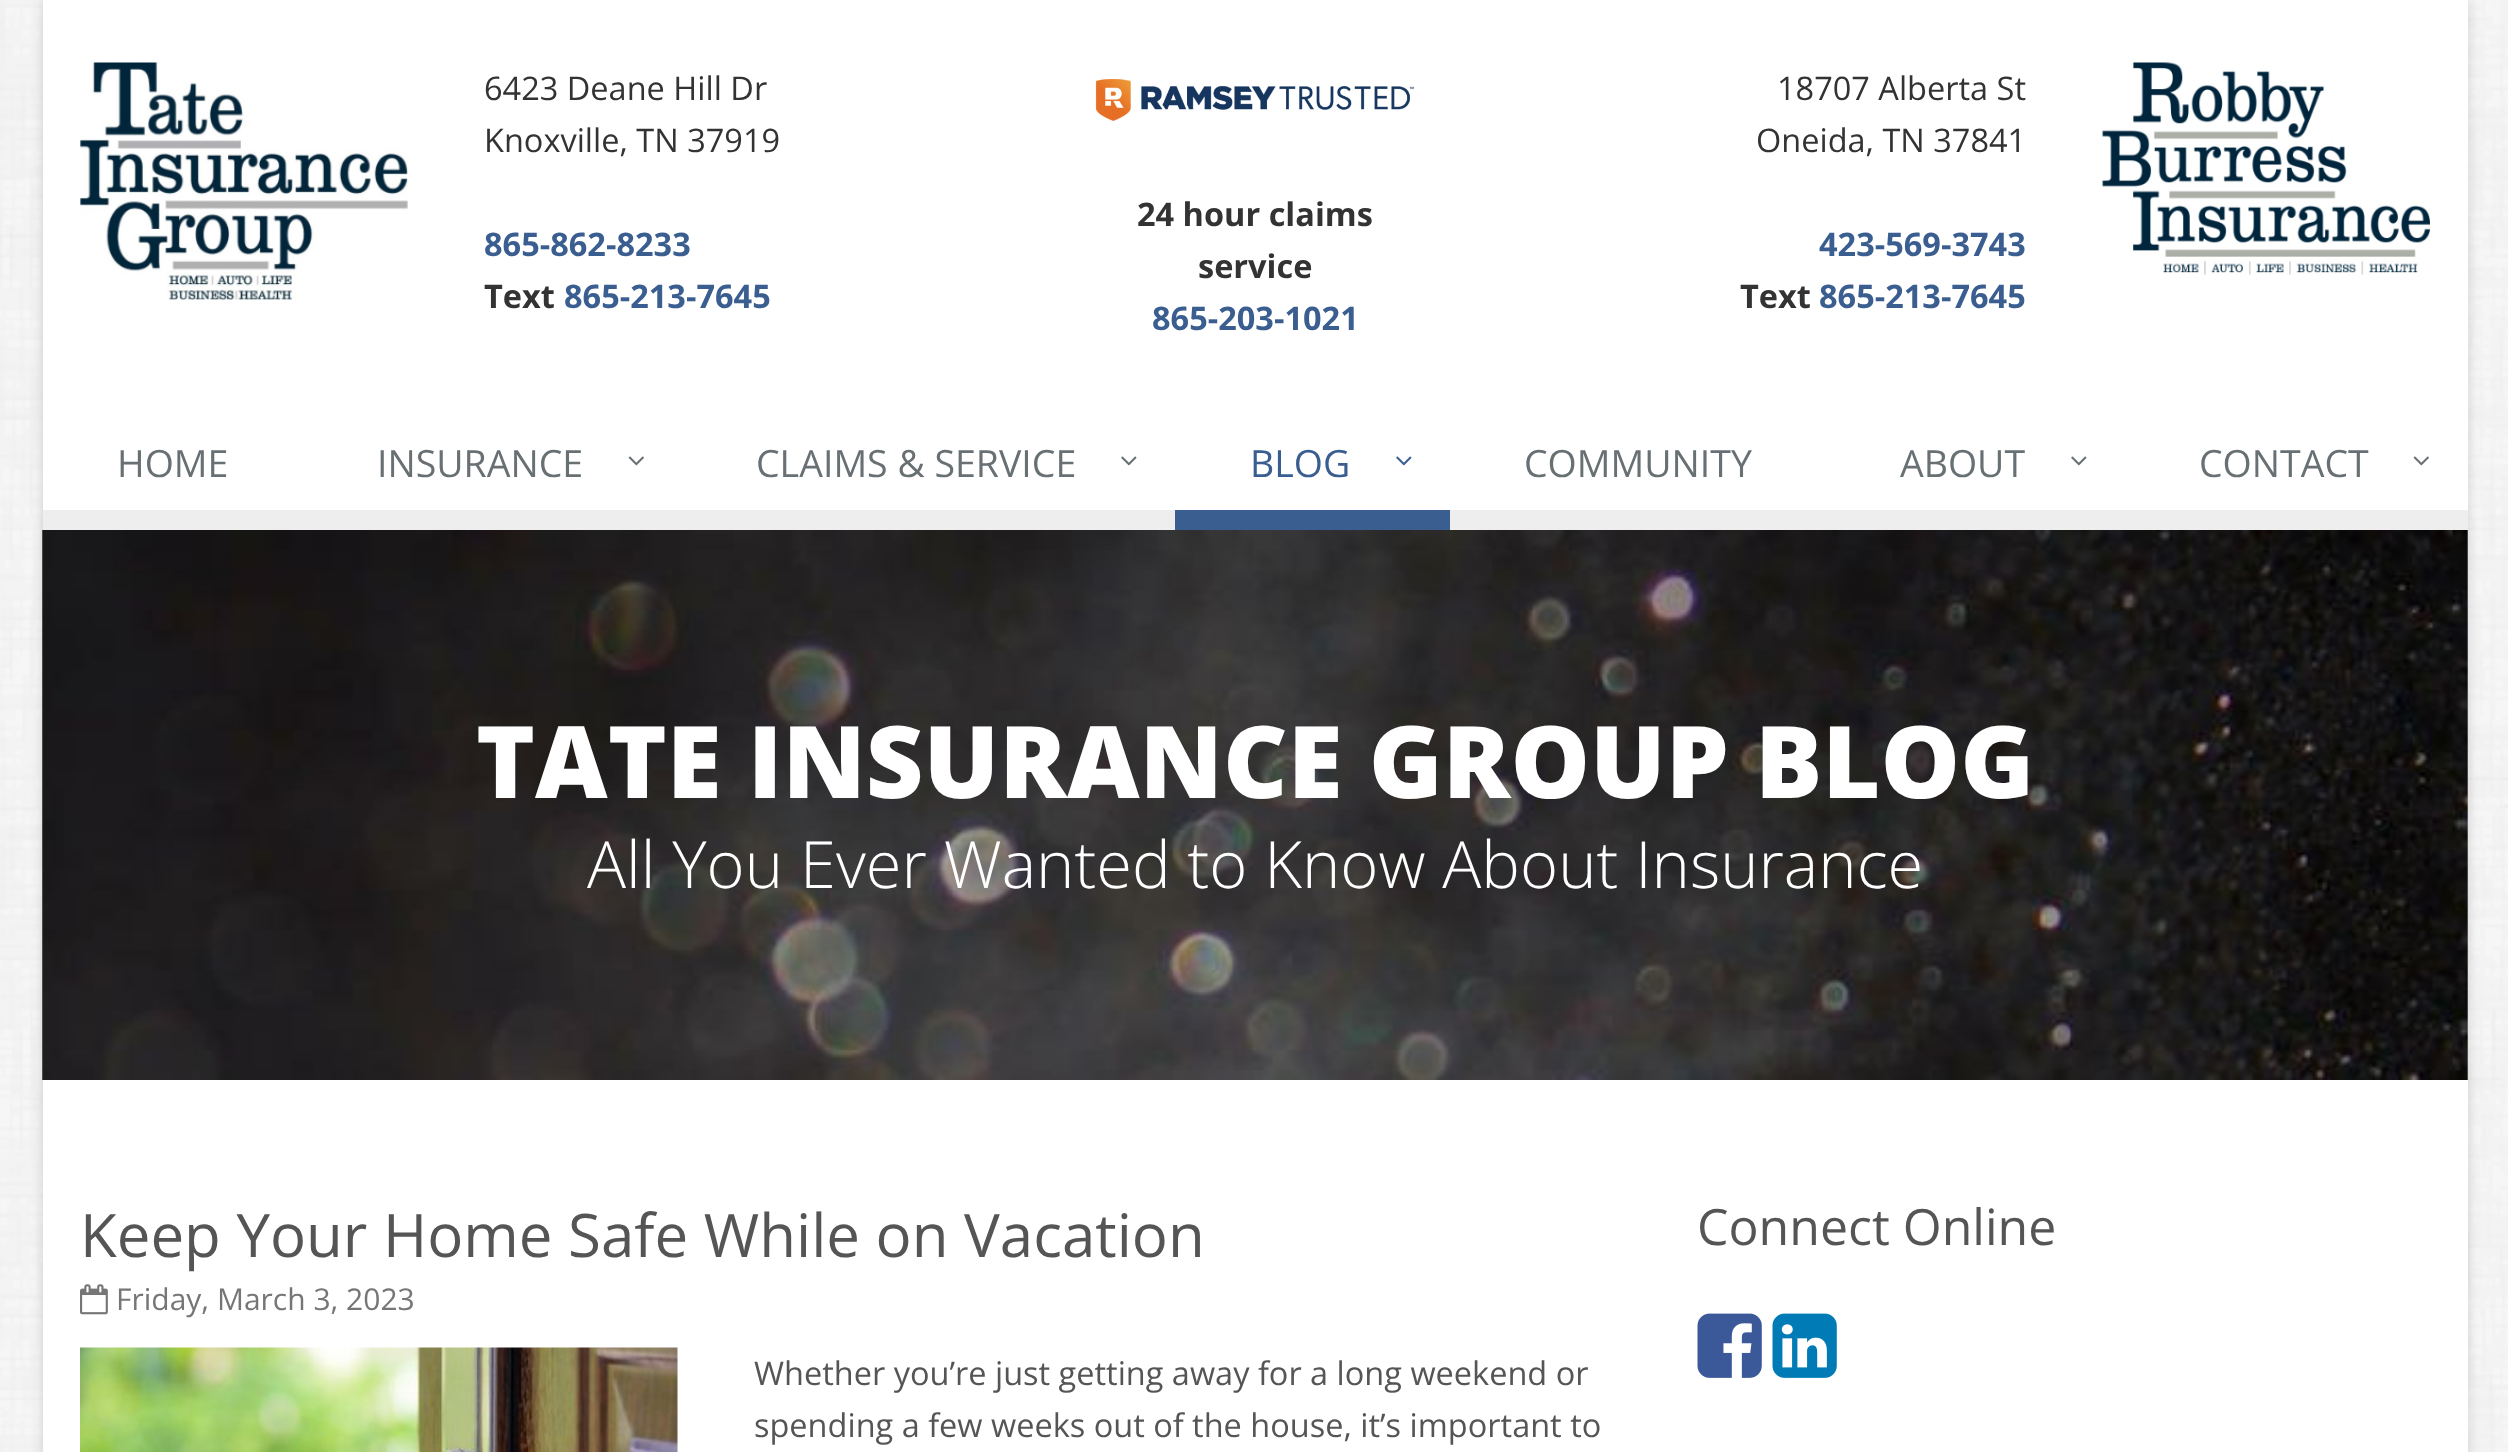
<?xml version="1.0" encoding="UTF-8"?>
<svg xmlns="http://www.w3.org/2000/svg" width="2508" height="1452">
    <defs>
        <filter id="blur1" x="-50%" y="-200%" width="200%" height="500%"><feGaussianBlur stdDeviation="6"/></filter>
    </defs>
    <rect width="100%" height="100%" fill="#FFFFFF"/>
    <image x="0" y="0" width="2508" height="1452" href="img_01.png"/>
    <rect x="43" y="0" width="2425" height="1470" fill="#000000" fill-opacity="0.16" filter="url(#blur1)"/>
    <rect x="43" y="0" width="2425" height="1452" fill="#FFFFFF"/>
    <rect x="43" y="510" width="2425" height="20" fill="#EEEEEE"/>
    <image x="80" y="62" width="328" height="238" href="img_02.png"/>
    <text font-family="Open Sans" font-size="32.5" fill="#333333">
        <tspan x="484" y="100">6423 Deane Hill Dr</tspan>
        <tspan x="484" y="152">Knoxville, TN 37919</tspan>
    </text>
    <text x="484" y="256" font-family="Open Sans" font-size="32.5" font-weight="700" fill="#3B5E91">865-862-8233</text>
    <text x="484" y="308" font-family="Open Sans" font-size="32.5" font-weight="700" fill="#333333">Text</text>
    <text x="564" y="308" font-family="Open Sans" font-size="32.5" font-weight="700" fill="#3B5E91">865-213-7645</text>
    <image x="1095" y="79" width="320" height="42" href="img_03.png"/>
    <text x="1137" y="226" font-family="Open Sans" font-size="32.5" font-weight="700" fill="#333333">24 hour claims</text>
    <text x="1198" y="278" font-family="Open Sans" font-size="32.5" font-weight="700" fill="#333333">service</text>
    <text x="1152" y="330" font-family="Open Sans" font-size="32.5" font-weight="700" fill="#3B5E91">865-203-1021</text>
    <text x="1777" y="100" font-family="Open Sans" font-size="32.5" fill="#333333">18707 Alberta St</text>
    <text x="1756" y="152" font-family="Open Sans" font-size="32.5" fill="#333333">Oneida, TN 37841</text>
    <text x="1819" y="256" font-family="Open Sans" font-size="32.5" font-weight="700" fill="#3B5E91">423-569-3743</text>
    <text x="1740" y="308" font-family="Open Sans" font-size="32.5" font-weight="700" fill="#333333">Text</text>
    <text x="1819" y="308" font-family="Open Sans" font-size="32.5" font-weight="700" fill="#3B5E91">865-213-7645</text>
    <image x="2101" y="62" width="329" height="213" href="img_04.png"/>
    <text x="117" y="477" font-family="Open Sans" font-size="37.5" fill="#687074">HOME</text>
    <text x="377" y="477" font-family="Open Sans" font-size="37.5" fill="#687074">INSURANCE</text>
    <image x="628" y="456" width="16" height="10" href="img_05.png"/>
    <text x="756" y="477" font-family="Open Sans" font-size="37.5" fill="#687074">CLAIMS &amp; SERVICE</text>
    <image x="1121" y="456" width="16" height="10" href="img_06.png"/>
    <rect x="1175" y="510" width="275" height="20" fill="#3B5E91"/>
    <text x="1250" y="477" font-family="Open Sans" font-size="37.5" fill="#3B5E91">BLOG</text>
    <image x="1396" y="456" width="16" height="10" href="img_07.png"/>
    <text x="1524" y="477" font-family="Open Sans" font-size="37.5" fill="#687074">COMMUNITY</text>
    <text x="1900" y="477" font-family="Open Sans" font-size="37.5" fill="#687074">ABOUT</text>
    <image x="2071" y="456" width="16" height="10" href="img_06.png"/>
    <text x="2199" y="477" font-family="Open Sans" font-size="37.5" fill="#687074">CONTACT</text>
    <image x="2413" y="456" width="16" height="10" href="img_05.png"/>
    <image x="42" y="530" width="2426" height="550" href="img_08.png"/>
    <text x="476" y="798" font-family="Open Sans" font-size="100" font-weight="800" fill="#FFFFFF">TATE INSURANCE GROUP BLOG</text>
    <text x="587" y="888" font-family="Open Sans" font-size="65" font-weight="300" fill="#FFFFFF">All You Ever Wanted to Know About Insurance</text>
    <text x="80" y="1257" font-family="Open Sans" font-size="60" fill="#555555">Keep Your Home Safe While on Vacation</text>
    <image x="80" y="1284" width="28" height="31" href="img_09.png"/>
    <text x="116" y="1310" font-family="Open Sans" font-size="30" fill="#767676">Friday, March 3, 2023</text>
    <image x="80" y="1347" width="598" height="105" href="img_10.png"/>
    <text font-family="Open Sans" font-size="32.5" fill="#555555">
        <tspan x="754" y="1385">Whether you’re just getting away for a long weekend or</tspan>
        <tspan x="754" y="1437">spending a few weeks out of the house, it’s important to</tspan>
    </text>
    <text x="1697" y="1245" font-family="Open Sans" font-size="50" fill="#555555">Connect Online</text>
    <image x="1697" y="1313" width="65" height="65" href="img_11.png"/>
    <image x="1772" y="1313" width="65" height="65" href="img_12.png"/>
</svg>
